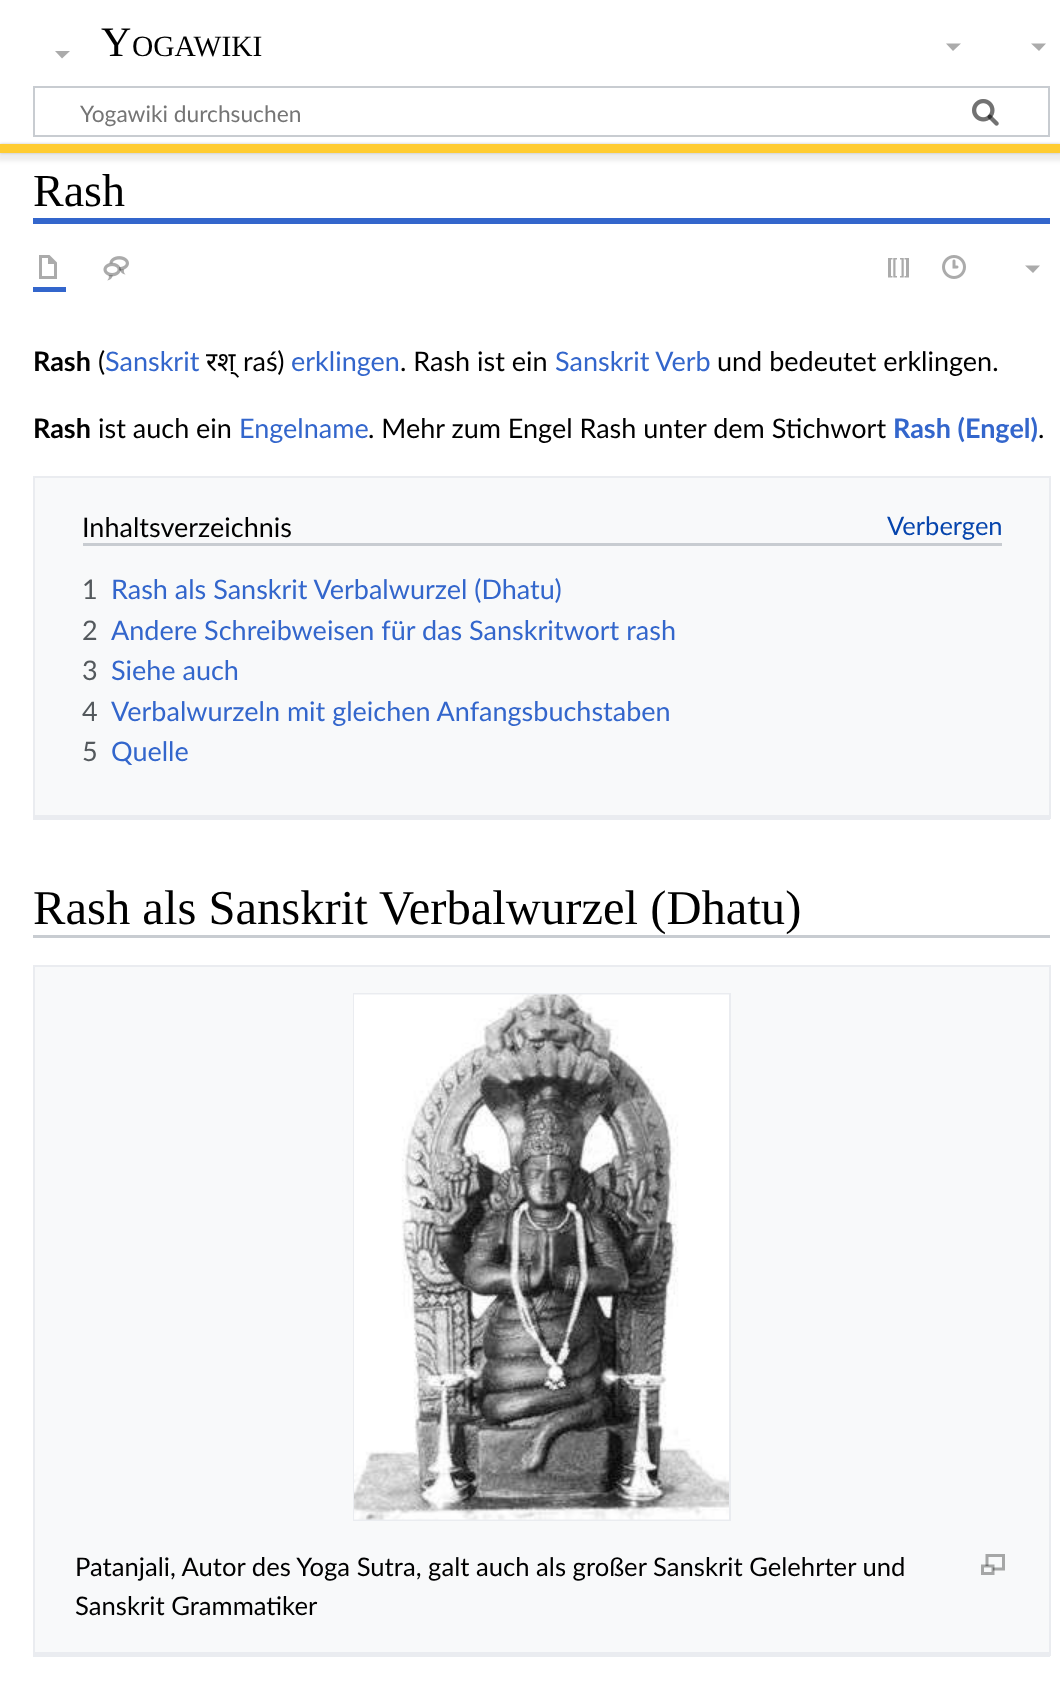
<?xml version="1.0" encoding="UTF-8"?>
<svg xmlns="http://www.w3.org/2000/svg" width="1060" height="1705">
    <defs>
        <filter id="blur1" x="-50%" y="-200%" width="200%" height="500%"><feGaussianBlur stdDeviation="1.5"/></filter>
        <filter id="blur2" x="-50%" y="-200%" width="200%" height="500%"><feGaussianBlur stdDeviation="2"/></filter>
    </defs>
    <rect width="100%" height="100%" fill="#FFFFFF"/>
    <text x="101" y="56" font-family="Liberation Serif" font-size="42" fill="#000000">Y</text>
    <text x="132" y="56" font-family="Liberation Serif" font-size="29.5" fill="#000000">OGAWIKI</text>
    <path d="M 1046 43.5 L 1039 51 L 1031 43.5 Z" fill="#ABABAB"/>
    <rect x="34" y="87" width="1015" height="49" fill="none" stroke="#C8CCD1" stroke-width="2"/>
    <image x="972" y="99" width="27" height="27" href="img_01.png"/>
    <text x="80" y="122" font-family="Lato" font-size="22.75" fill="#757575">Yogawiki durchsuchen</text>
    <image x="972" y="99" width="27" height="27" href="img_02.png"/>
    <rect x="0" y="144" width="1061" height="9" fill="#000000" fill-opacity="0.2" filter="url(#blur1)"/>
    <rect x="-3" y="146" width="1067" height="15" fill="#000000" fill-opacity="0.07" filter="url(#blur2)"/>
    <rect x="0" y="144" width="1060" height="9" fill="#FFCC32"/>
    <path d="M 961 43.5 L 953 51 L 946 43.5 Z" fill="#ABABAB"/>
    <path d="M 70 51 L 62 58.5 L 55 51 Z" fill="#ABABAB"/>
    <rect x="33" y="218" width="1017" height="6" fill="#3366CC"/>
    <text x="33" y="206" font-family="Liberation Serif" font-size="46" fill="#000000">Rash</text>
    <rect x="33" y="287" width="33" height="5" fill="#3366CC"/>
    <image x="39" y="255" width="18" height="24" href="img_03.png"/>
    <image x="103" y="256" width="26" height="25" href="img_04.png"/>
    <image x="888" y="258" width="21" height="20" href="img_05.png"/>
    <image x="942" y="255" width="24" height="24" href="img_06.png"/>
    <path d="M 1040 265.5 L 1033 273 L 1025 265.5 Z" fill="#ABABAB"/>
    <text x="33" y="371" font-family="Lato" font-size="27" font-weight="700" fill="#000000">Rash</text>
    <text x="98" y="371" font-family="Lato" font-size="27" fill="#000000">(</text>
    <text x="105" y="371" font-family="Lato" font-size="27" fill="#3366CC">Sanskrit</text>
    <text x="206" y="371" font-family="Noto Sans" font-size="27" fill="#000000">रश्</text>
    <text x="243" y="371" font-family="Lato" font-size="27" fill="#000000">raś)</text>
    <text x="291" y="371" font-family="Lato" font-size="27" fill="#3366CC">erklingen</text>
    <text x="400" y="371" font-family="Lato" font-size="27" fill="#000000">. Rash ist ein</text>
    <text x="555" y="371" font-family="Lato" font-size="27" fill="#3366CC">Sanskrit Verb</text>
    <text x="717" y="371" font-family="Lato" font-size="27" fill="#000000">und bedeutet erklingen.</text>
    <text x="33" y="438" font-family="Lato" font-size="27" font-weight="700" fill="#000000">Rash</text>
    <text x="98" y="438" font-family="Lato" font-size="27" fill="#000000">ist auch ein</text>
    <text x="239" y="438" font-family="Lato" font-size="27" fill="#3366CC">Engelname</text>
    <text x="368" y="438" font-family="Lato" font-size="27" fill="#000000">. Mehr zum Engel Rash unter dem Stichwort</text>
    <text x="893" y="438" font-family="Lato" font-size="27" font-weight="700" fill="#3366CC">Rash (Engel)</text>
    <text x="1038" y="438" font-family="Lato" font-size="27" fill="#000000">.</text>
    <rect x="35" y="478" width="1014" height="337" fill="#F8F9FA"/>
    <rect x="33" y="476" width="1017" height="2" fill="#EAECF0"/>
    <rect x="1049" y="476" width="2" height="343" fill="#EAECF0"/>
    <rect x="33" y="815" width="1017" height="5" fill="#EAECF0"/>
    <rect x="33" y="476" width="2" height="343" fill="#EAECF0"/>
    <rect x="83" y="543" width="919" height="3" fill="#C8CCD1"/>
    <text x="82" y="537" font-family="Lato" font-size="27" fill="#000000">Inhaltsverzeichnis</text>
    <text x="887" y="535" font-family="Lato" font-size="25.5" fill="#0645AD">Verbergen</text>
    <text x="82" y="599" font-family="Lato" font-size="27" fill="#54595D">1</text>
    <text x="111" y="599" font-family="Lato" font-size="27" fill="#3366CC">Rash als Sanskrit Verbalwurzel (Dhatu)</text>
    <text x="82" y="640" font-family="Lato" font-size="27" fill="#54595D">2</text>
    <text x="111" y="640" font-family="Lato" font-size="27" fill="#3366CC">Andere Schreibweisen für das Sanskritwort rash</text>
    <text x="82" y="680" font-family="Lato" font-size="27" fill="#54595D">3</text>
    <text x="111" y="680" font-family="Lato" font-size="27" fill="#3366CC">Siehe auch</text>
    <text x="82" y="721" font-family="Lato" font-size="27" fill="#54595D">4</text>
    <text x="111" y="721" font-family="Lato" font-size="27" fill="#3366CC">Verbalwurzeln mit gleichen Anfangsbuchstaben</text>
    <text x="82" y="761" font-family="Lato" font-size="27" fill="#54595D">5</text>
    <text x="111" y="761" font-family="Lato" font-size="27" fill="#3366CC">Quelle</text>
    <text x="33" y="924" font-family="Liberation Serif" font-size="48.6" fill="#000000">Rash als Sanskrit Verbalwurzel (Dhatu)</text>
    <rect x="33" y="935" width="1017" height="3" fill="#C8CCD1"/>
    <rect x="35" y="967" width="1014" height="685" fill="#F8F9FA"/>
    <rect x="33" y="965" width="1017" height="2" fill="#EAECF0"/>
    <rect x="1049" y="965" width="2" height="691" fill="#EAECF0"/>
    <rect x="33" y="1652" width="1017" height="5" fill="#EAECF0"/>
    <rect x="33" y="965" width="2" height="691" fill="#EAECF0"/>
    <rect x="354" y="994" width="376" height="526" fill="none" stroke="#EAECF0" stroke-width="2"/>
    <image x="354" y="994" width="375" height="526" href="img_07.png"/>
    <text x="75" y="1576" font-family="Lato" font-size="25.65" fill="#000000">Patanjali, Autor des Yoga Sutra, galt auch als großer Sanskrit Gelehrter und</text>
    <image x="981" y="1554" width="24" height="21" href="img_08.png"/>
    <text x="75" y="1615" font-family="Lato" font-size="25.65" fill="#000000">Sanskrit Grammatiker</text>
</svg>
